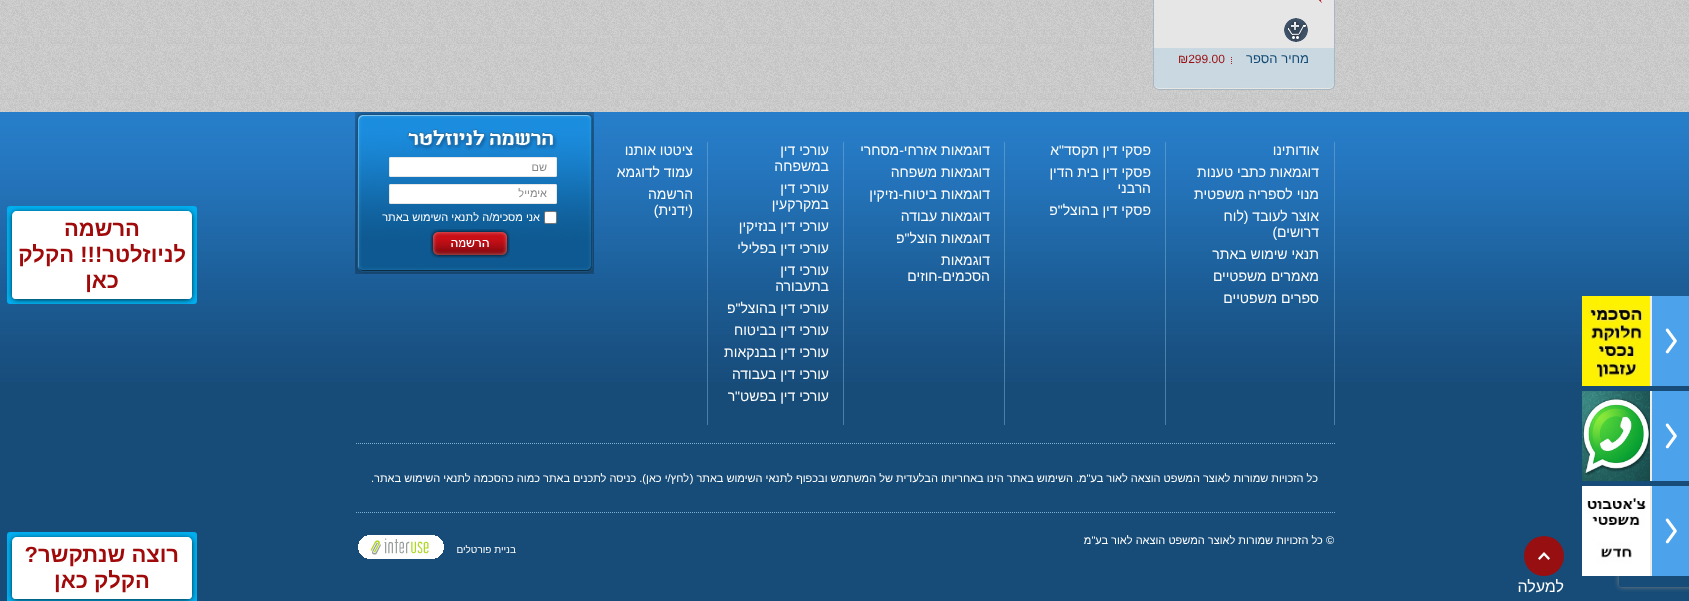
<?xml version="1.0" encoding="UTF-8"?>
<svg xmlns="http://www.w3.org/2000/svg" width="1689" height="601">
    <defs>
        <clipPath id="clip1"><path d="M 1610 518 H 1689 V 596 H 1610 Z M 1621 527 H 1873 C 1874 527 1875 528 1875 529 V 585 C 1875 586 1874 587 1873 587 H 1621 C 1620 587 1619 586 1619 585 V 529 C 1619 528 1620 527 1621 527 Z" clip-rule="evenodd"/></clipPath>
        <filter id="blur1" x="-50%" y="-200%" width="200%" height="500%"><feGaussianBlur stdDeviation="2.5"/></filter>
    </defs>
    <rect width="100%" height="100%" fill="#FFFFFF"/>
    <image x="0" y="0" width="1689" height="112" href="img_01.png"/>
    <image x="1153" y="0" width="182" height="90" href="img_02.png"/>
    <image x="1318" y="0" width="4" height="3" href="img_03.png"/>
    <image x="1284" y="18" width="24" height="24" href="img_04.png"/>
    <text x="1309" y="63" font-family="Liberation Sans" font-size="13" direction="rtl" fill="#114B75">מחיר הספר</text>
    <image x="1231" y="57" width="1" height="7" href="img_05.png"/>
    <text x="1178" y="63" font-family="Liberation Sans" font-size="12" fill="#970F11">₪299.00</text>
    <rect x="0" y="382" width="1689" height="219" fill="#174C78"/>
    <image x="1335" y="112" width="354" height="270" href="img_10.png"/>
    <rect x="1652" y="296" width="37" height="90" fill="#4CA2EB"/>
    <image x="1665" y="328" width="12" height="26" href="img_06.png"/>
    <rect x="1650" y="296" width="2" height="90" fill="#EDEDED"/>
    <image x="1582" y="296" width="68" height="90" href="img_07.png"/>
    <rect x="1652" y="391" width="37" height="90" fill="#4CA2EB"/>
    <image x="1665" y="423" width="12" height="26" href="img_06.png"/>
    <rect x="1650" y="391" width="2" height="90" fill="#EDEDED"/>
    <image x="1582" y="391" width="68" height="90" href="img_08.png"/>
    <g clip-path="url(#clip1)">
        <rect x="1619" y="527" width="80" height="60" rx="2" fill="#808080" filter="url(#blur1)"/>
    </g>
    <rect x="1652" y="486" width="37" height="90" fill="#4CA2EB"/>
    <image x="1665" y="518" width="12" height="26" href="img_06.png"/>
    <rect x="1650" y="486" width="2" height="90" fill="#EDEDED"/>
    <image x="1582" y="486" width="68" height="90" href="img_09.png"/>
    <image x="355" y="112" width="980" height="270" href="img_11.png"/>
    <rect x="1334" y="142" width="1" height="283" fill="#7EAFD5" fill-opacity="0.5"/>
    <text font-family="Liberation Sans" font-size="14" direction="rtl" fill="#FFFFFF">
        <tspan x="1319" y="155">אודותינו</tspan>
        <tspan x="1319" y="177">דוגמאות כתבי טענות</tspan>
        <tspan x="1319" y="199">מנוי לספריה משפטית</tspan>
        <tspan x="1319" y="221">אוצר לעובד (לוח</tspan>
        <tspan x="1319" y="237">דרושים)</tspan>
        <tspan x="1319" y="259">תנאי שימוש באתר</tspan>
        <tspan x="1319" y="281">מאמרים משפטיים</tspan>
        <tspan x="1319" y="303">ספרים משפטיים</tspan>
    </text>
    <rect x="1165" y="142" width="1" height="283" fill="#7EAFD5" fill-opacity="0.5"/>
    <text font-family="Liberation Sans" font-size="14" direction="rtl" fill="#FFFFFF">
        <tspan x="1151" y="155">פסקי דין תקסד"א</tspan>
        <tspan x="1151" y="177">פסקי דין בית הדין</tspan>
        <tspan x="1151" y="193">הרבני</tspan>
        <tspan x="1151" y="215">פסקי דין בהוצל"פ</tspan>
    </text>
    <rect x="1004" y="142" width="1" height="283" fill="#7EAFD5" fill-opacity="0.5"/>
    <text font-family="Liberation Sans" font-size="14" direction="rtl" fill="#FFFFFF">
        <tspan x="990" y="155">דוגמאות אזרחי-מסחרי</tspan>
        <tspan x="990" y="177">דוגמאות משפחה</tspan>
        <tspan x="990" y="199">דוגמאות ביטוח-נזיקין</tspan>
        <tspan x="990" y="221">דוגמאות עבודה</tspan>
        <tspan x="990" y="243">דוגמאות הוצל"פ</tspan>
        <tspan x="990" y="265">דוגמאות</tspan>
        <tspan x="990" y="281">הסכמים-חוזים</tspan>
    </text>
    <rect x="843" y="142" width="1" height="283" fill="#7EAFD5" fill-opacity="0.5"/>
    <text font-family="Liberation Sans" font-size="14" direction="rtl" fill="#FFFFFF">
        <tspan x="829" y="155">עורכי דין</tspan>
        <tspan x="829" y="171">במשפחה</tspan>
        <tspan x="829" y="193">עורכי דין</tspan>
        <tspan x="829" y="209">במקרקעין</tspan>
        <tspan x="829" y="231">עורכי דין בנזיקין</tspan>
        <tspan x="829" y="253">עורכי דין בפלילי</tspan>
        <tspan x="829" y="275">עורכי דין</tspan>
        <tspan x="829" y="291">בתעבורה</tspan>
        <tspan x="829" y="313">עורכי דין בהוצל"פ</tspan>
        <tspan x="829" y="335">עורכי דין בביטוח</tspan>
        <tspan x="829" y="357">עורכי דין בבנקאות</tspan>
        <tspan x="829" y="379">עורכי דין בעבודה</tspan>
        <tspan x="829" y="401">עורכי דין בפשט"ר</tspan>
    </text>
    <rect x="707" y="142" width="1" height="283" fill="#7EAFD5" fill-opacity="0.5"/>
    <text font-family="Liberation Sans" font-size="14" direction="rtl" fill="#FFFFFF">
        <tspan x="693" y="155">ציטטו אותנו</tspan>
        <tspan x="693" y="177">עמוד לדוגמא</tspan>
        <tspan x="693" y="199">הרשמה</tspan>
        <tspan x="693" y="215">(ידנית)</tspan>
    </text>
    <image x="355" y="112" width="239" height="162" href="img_12.png"/>
    <text x="547" y="171" font-family="Liberation Sans" font-size="11" direction="rtl" fill="#878787">שם</text>
    <text x="547" y="197" font-family="Liberation Sans" font-size="11" direction="rtl" fill="#878787">אימייל</text>
    <rect x="544.5" y="211.5" width="12" height="12" rx="1.5" fill="#FFFFFF" stroke="#767676"/>
    <text x="540" y="221" font-family="Liberation Sans" font-size="11" direction="rtl" fill="#FFFFFF">אני מסכימ/ה ל</text>
    <text x="473" y="221" font-family="Liberation Sans" font-size="11" direction="rtl" fill="#FFFFFF">תנאי השימוש באתר</text>
    <image x="430" y="229" width="80" height="29" href="img_13.png"/>
    <image x="356" y="443" width="979" height="1" href="img_14.png"/>
    <text x="1318" y="482" font-family="Liberation Sans" font-size="11" direction="rtl" fill="#FFFFFF">כל הזכויות שמורות לאוצר המשפט הוצאה לאור בע"מ. השימוש באתר הינו באחריותו הבלעדית של המשתמש ובכפוף לתנאי השימוש באתר (</text>
    <text x="689" y="482" font-family="Liberation Sans" font-size="11" direction="rtl" fill="#FFFFFF">לחץ/י כאן</text>
    <text x="646" y="482" font-family="Liberation Sans" font-size="11" direction="rtl" fill="#FFFFFF">). כניסה לתכנים באתר כמוה כהסכמה לתנאי השימוש באתר.</text>
    <image x="356" y="512" width="979" height="1" href="img_14.png"/>
    <circle cx="1544" cy="556" r="20" fill="#970F11"/>
    <image x="1538" y="552" width="12" height="8" href="img_15.png"/>
    <text x="1334" y="544" font-family="Liberation Sans" font-size="11" direction="rtl" fill="#FFFFFF">© כל הזכויות שמורות לאוצר המשפט הוצאה לאור בע"מ</text>
    <image x="358" y="535" width="86" height="24" href="img_16.png"/>
    <text x="516" y="553" font-family="Liberation Sans" font-size="10" direction="rtl" fill="#FFFFFF">בניית פורטלים</text>
    <text x="1564" y="592" font-family="Liberation Sans" font-size="16" direction="rtl" fill="#FFFFFF">למעלה</text>
    <image x="0" y="112" width="355" height="270" href="img_17.png"/>
    <rect x="7" y="206" width="190" height="98" rx="3" fill="#00AEEF"/>
    <rect x="12" y="212" width="180" height="88" rx="5" fill="#000000" fill-opacity="0.75" filter="url(#blur1)"/>
    <path d="M 17 211 H 187 C 190 211 192 213 192 216 V 296 C 192 297.5 190.5 299 189 299 H 15 C 13.5 299 12 297.5 12 296 V 216 C 12 213 14 211 17 211 Z" fill="#FFFFFF"/>
    <text x="140" y="236" font-family="Liberation Sans" font-size="22" font-weight="700" direction="rtl" fill="#A00A0A">הרשמה</text>
    <text x="186" y="262" font-family="Liberation Sans" font-size="22" font-weight="700" direction="rtl" fill="#A00A0A">לניוזלטר!!! הקלק</text>
    <text x="119" y="288" font-family="Liberation Sans" font-size="22" font-weight="700" direction="rtl" fill="#A00A0A">כאן</text>
    <rect x="7" y="532" width="190" height="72" rx="3" fill="#00AEEF"/>
    <rect x="12" y="538" width="180" height="62" rx="5" fill="#000000" fill-opacity="0.75" filter="url(#blur1)"/>
    <path d="M 17 537 H 187 C 190 537 192 539 192 542 V 596 C 192 597.5 190.5 599 189 599 H 15 C 13.5 599 12 597.5 12 596 V 542 C 12 539 14 537 17 537 Z" fill="#FFFFFF"/>
    <text x="179" y="562" font-family="Liberation Sans" font-size="22" font-weight="700" direction="rtl" fill="#A00A0A">רוצה שנתקשר?</text>
    <text x="150" y="588" font-family="Liberation Sans" font-size="22" font-weight="700" direction="rtl" fill="#A00A0A">הקלק כאן</text>
</svg>
